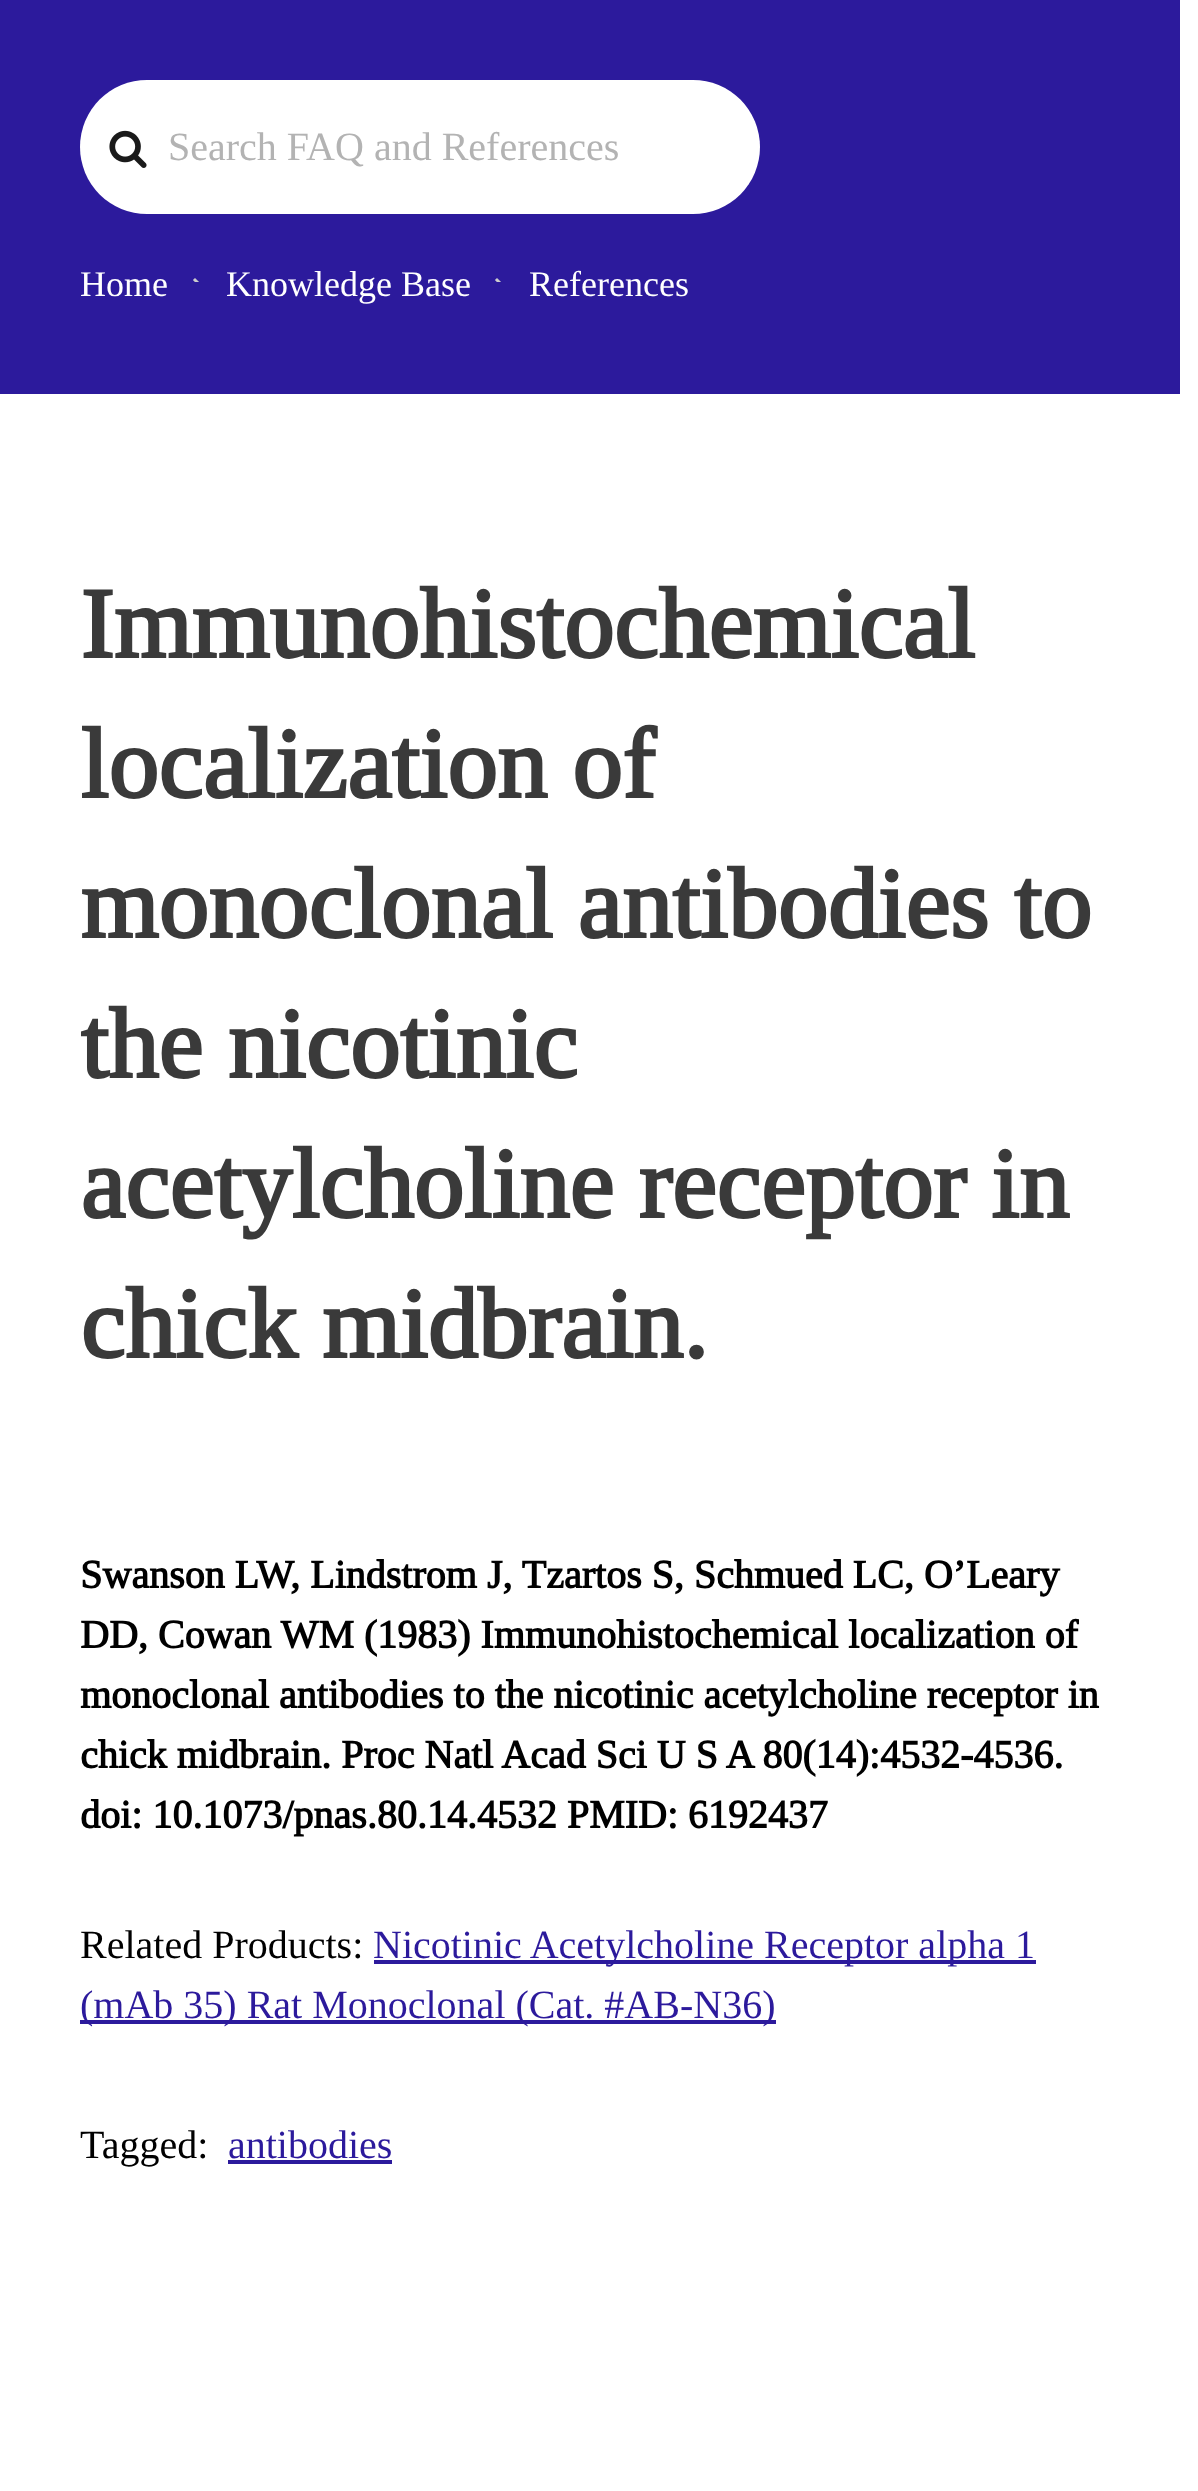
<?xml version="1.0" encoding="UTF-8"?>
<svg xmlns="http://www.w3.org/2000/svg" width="1198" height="2491">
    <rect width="100%" height="100%" fill="#FFFFFF"/>
    <rect x="0" y="0" width="1180" height="394" fill="#2C1A9C"/>
    <rect x="80" y="80" width="680" height="134" rx="67" fill="#FFFFFF"/>
    <image x="109" y="130" width="38" height="38" href="img_01.png"/>
    <text x="168" y="160" font-family="Tinos" font-size="40" fill="#B3B3B3">Search FAQ and References</text>
    <text x="80" y="296" font-family="Tinos" font-size="36" fill="#FFFFFF">Home</text>
    <image x="193" y="278" width="6" height="4" href="img_02.png"/>
    <text x="226" y="296" font-family="Tinos" font-size="36" fill="#FFFFFF">Knowledge Base</text>
    <image x="495" y="278" width="6" height="4" href="img_02.png"/>
    <text x="529" y="296" font-family="Tinos" font-size="36" fill="#FFFFFF">References</text>
    <text font-family="Tinos" font-size="100" font-weight="700" fill="#3A3A3A">
        <tspan x="80" y="658">Immunohistochemical</tspan>
        <tspan x="80" y="798">localization of</tspan>
        <tspan x="80" y="938">monoclonal antibodies to</tspan>
        <tspan x="80" y="1078">the nicotinic</tspan>
        <tspan x="80" y="1218">acetylcholine receptor in</tspan>
        <tspan x="80" y="1358">chick midbrain.</tspan>
    </text>
    <text font-family="Tinos" font-size="40" font-weight="700" fill="#000000">
        <tspan x="80" y="1588">Swanson LW, Lindstrom J, Tzartos S, Schmued LC, O’Leary</tspan>
        <tspan x="80" y="1648">DD, Cowan WM (1983) Immunohistochemical localization of</tspan>
        <tspan x="80" y="1708">monoclonal antibodies to the nicotinic acetylcholine receptor in</tspan>
        <tspan x="80" y="1768">chick midbrain. Proc Natl Acad Sci U S A 80(14):4532-4536.</tspan>
        <tspan x="80" y="1828">doi: 10.1073/pnas.80.14.4532 PMID: 6192437</tspan>
    </text>
    <text x="80" y="1958" font-family="Tinos" font-size="40" fill="#000000">Related Products:</text>
    <rect x="374" y="1960" width="662" height="4" fill="#2C1A9C"/>
    <text x="373" y="1958" font-family="Tinos" font-size="40" fill="#2C1A9C">Nicotinic Acetylcholine Receptor alpha 1</text>
    <rect x="80" y="2020" width="696" height="4" fill="#2C1A9C"/>
    <text x="80" y="2018" font-family="Tinos" font-size="40" fill="#2C1A9C">(mAb 35) Rat Monoclonal (Cat. #AB-N36)</text>
    <text x="80" y="2158" font-family="Tinos" font-size="40" fill="#000000">Tagged:</text>
    <text x="228" y="2158" font-family="Tinos" font-size="40" fill="#2C1A9C">antibodies</text>
    <rect x="228" y="2160" width="164" height="4" fill="#2C1A9C"/>
</svg>
